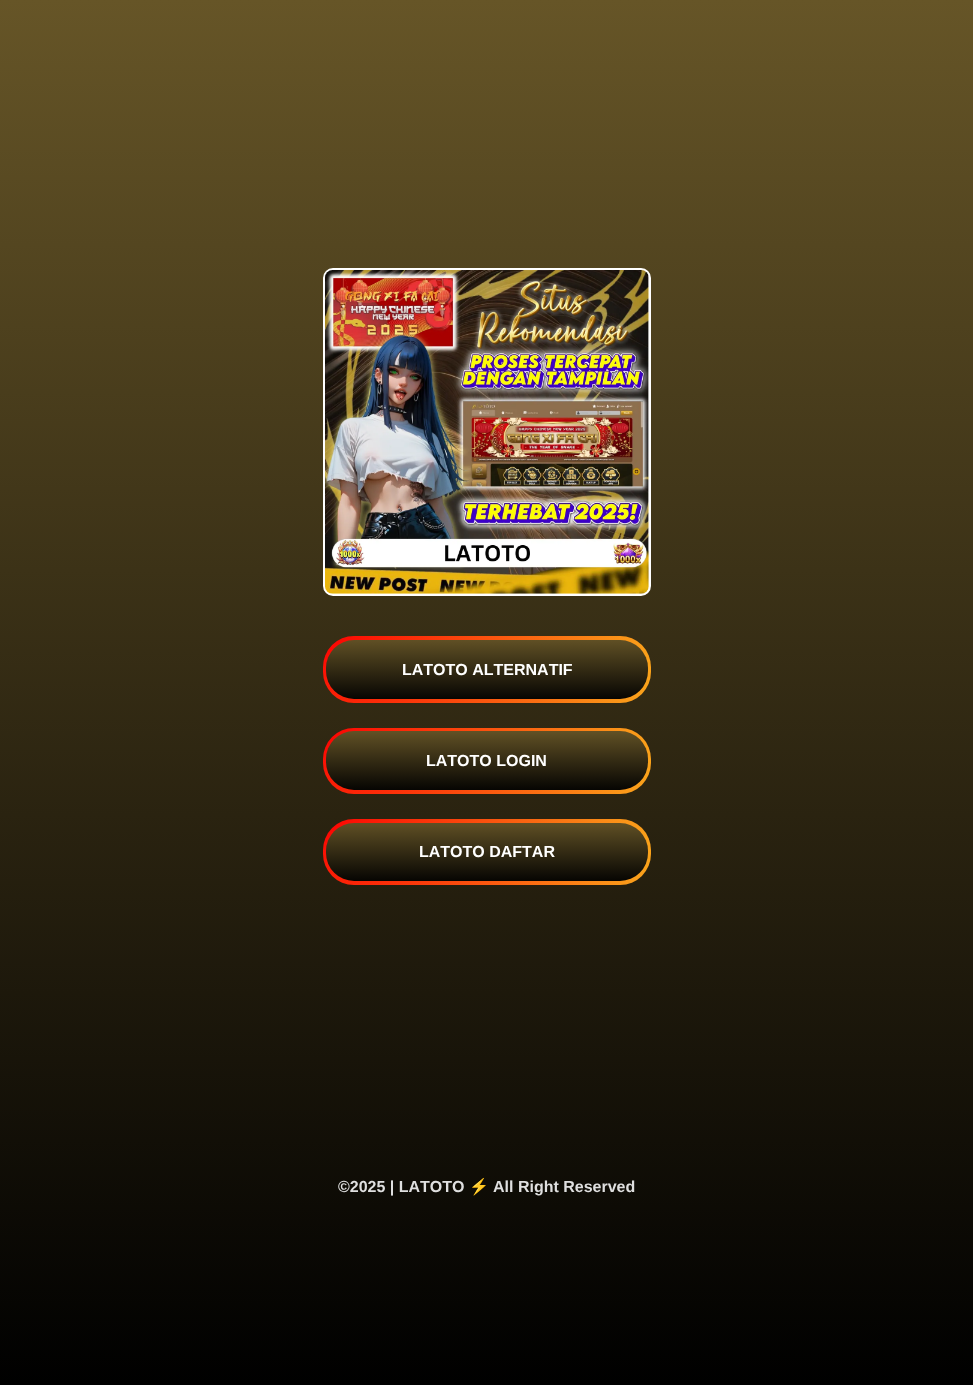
<?xml version="1.0" encoding="UTF-8"?>
<svg xmlns="http://www.w3.org/2000/svg" width="973" height="1385">
    <style>*{font-kerning:none!important;font-variant-ligatures:none!important}</style>
    <defs>
        <linearGradient id="g1" gradientUnits="userSpaceOnUse" x1="487" y1="0" x2="487" y2="1385"><stop offset="0" stop-color="#665527"/><stop offset="1" stop-color="#000000"/></linearGradient>
        <radialGradient id="g2" gradientUnits="userSpaceOnUse" cx="323" cy="636" r="335"><stop offset="0" stop-color="#FC0202"/><stop offset="1" stop-color="#FAA51B"/></radialGradient>
        <linearGradient id="g3" gradientUnits="userSpaceOnUse" x1="487" y1="636" x2="487" y2="703"><stop offset="0" stop-color="#665527"/><stop offset="1" stop-color="#000000"/></linearGradient>
        <radialGradient id="g4" gradientUnits="userSpaceOnUse" cx="323" cy="728" r="335"><stop offset="0" stop-color="#FC0202"/><stop offset="1" stop-color="#FAA51B"/></radialGradient>
        <linearGradient id="g5" gradientUnits="userSpaceOnUse" x1="487" y1="728" x2="487" y2="794"><stop offset="0" stop-color="#665527"/><stop offset="1" stop-color="#000000"/></linearGradient>
        <radialGradient id="g6" gradientUnits="userSpaceOnUse" cx="323" cy="819" r="335"><stop offset="0" stop-color="#FC0202"/><stop offset="1" stop-color="#FAA51B"/></radialGradient>
        <linearGradient id="g7" gradientUnits="userSpaceOnUse" x1="487" y1="819" x2="487" y2="885"><stop offset="0" stop-color="#665527"/><stop offset="1" stop-color="#000000"/></linearGradient>
    </defs>
    <rect width="100%" height="100%" fill="#FFFFFF"/>
    <rect x="0" y="0" width="973" height="1385" fill="url(#g1)"/>
    <rect x="324.5" y="269.5" width="325" height="325" rx="8.5" fill="none" stroke="#FFFFFF" stroke-width="3"/>
    <image x="325" y="270" width="324" height="324" href="img_01.png"/>
    <rect x="323" y="636" width="328" height="67" rx="31" fill="url(#g2)"/>
    <rect x="326" y="640" width="322" height="59" rx="28" fill="url(#g3)"/>
    <text x="402" y="675" font-family="Liberation Sans" font-size="16" font-weight="700" fill="#FFFFFF">LATOTO ALTERNATIF</text>
    <rect x="323" y="728" width="328" height="66" rx="31" fill="url(#g4)"/>
    <rect x="326" y="731" width="322" height="59" rx="28" fill="url(#g5)"/>
    <text x="426" y="766" font-family="Liberation Sans" font-size="16" font-weight="700" fill="#FFFFFF">LATOTO LOGIN</text>
    <rect x="323" y="819" width="328" height="66" rx="31" fill="url(#g6)"/>
    <rect x="326" y="823" width="322" height="58" rx="28" fill="url(#g7)"/>
    <text x="419" y="857" font-family="Liberation Sans" font-size="16" font-weight="700" fill="#FFFFFF">LATOTO DAFTAR</text>
    <text x="338" y="1192" font-family="Liberation Sans" font-size="16" font-weight="700" fill="#DFDFDF">©2025 | LATOTO</text>
    <text x="469" y="1192" font-family="Noto Color Emoji" font-size="16" font-weight="700" fill="#DFDFDF">⚡</text>
    <text x="493" y="1192" font-family="Liberation Sans" font-size="16" font-weight="700" fill="#DFDFDF">All Right Reserved</text>
</svg>
